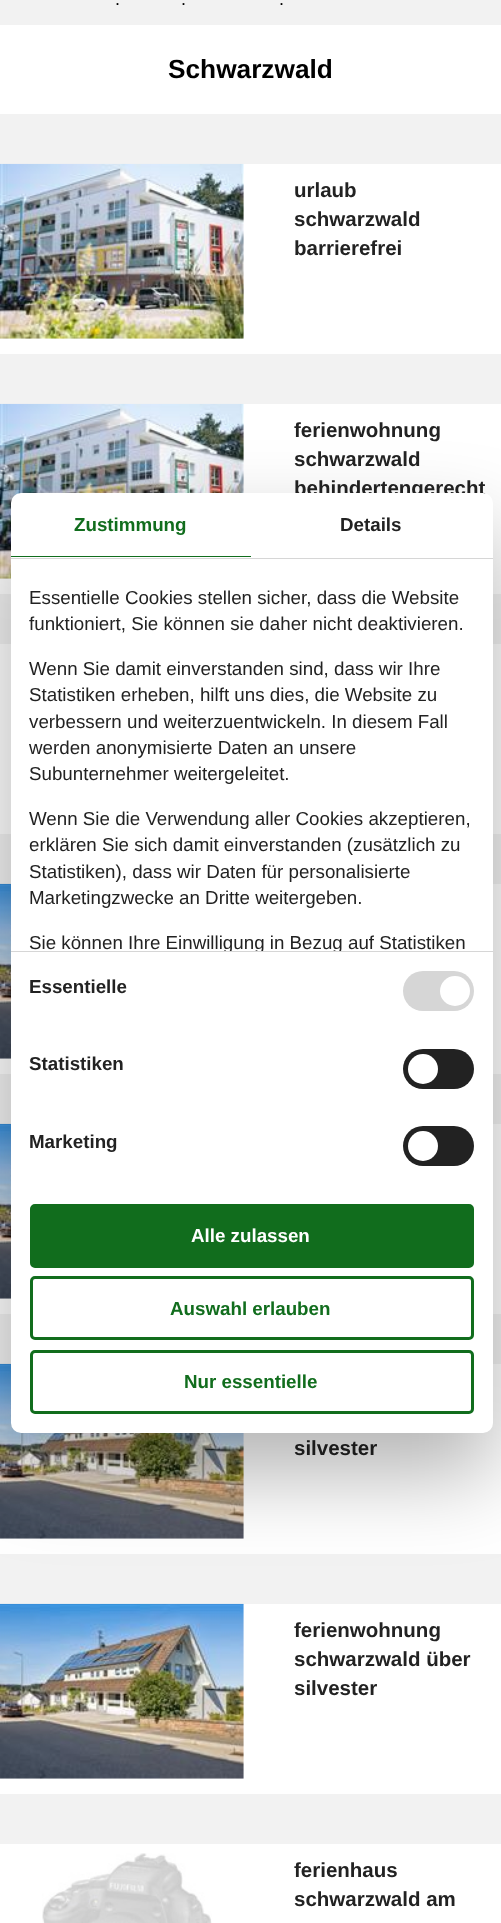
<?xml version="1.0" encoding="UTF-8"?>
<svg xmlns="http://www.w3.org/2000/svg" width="501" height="1923">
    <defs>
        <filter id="blur1" x="-50%" y="-200%" width="200%" height="500%"><feGaussianBlur stdDeviation="42.5"/></filter>
        <clipPath id="clip1"><rect x="11" y="559" width="482" height="392"/></clipPath>
    </defs>
    <rect width="100%" height="100%" fill="#F2F2F2"/>
    <text x="115" y="5" font-family="Liberation Sans" font-size="18" fill="#000000">.</text>
    <text x="181" y="5" font-family="Liberation Sans" font-size="18" fill="#000000">.</text>
    <text x="279" y="5" font-family="Liberation Sans" font-size="18" fill="#000000">.</text>
    <rect x="0" y="25" width="501" height="89" fill="#FFFFFF"/>
    <text x="168" y="78" font-family="Liberation Sans" font-size="26.25" font-weight="700" fill="#000000">Schwarzwald</text>
    <rect x="0" y="164" width="501" height="190" fill="#FFFFFF"/>
    <image x="0" y="163" width="244" height="176" href="img_01.png"/>
    <text font-family="Liberation Sans" font-size="20.5" font-weight="700" fill="#222222">
        <tspan x="294" y="197">urlaub</tspan>
        <tspan x="294" y="226">schwarzwald</tspan>
        <tspan x="294" y="255">barrierefrei</tspan>
    </text>
    <rect x="0" y="404" width="501" height="190" fill="#FFFFFF"/>
    <image x="0" y="403" width="244" height="176" href="img_01.png"/>
    <text font-family="Liberation Sans" font-size="20.5" font-weight="700" fill="#222222">
        <tspan x="294" y="437">ferienwohnung</tspan>
        <tspan x="294" y="466">schwarzwald</tspan>
        <tspan x="294" y="495">behindertengerecht</tspan>
    </text>
    <rect x="0" y="644" width="501" height="190" fill="#FFFFFF"/>
    <rect x="0" y="884" width="501" height="190" fill="#FFFFFF"/>
    <image x="0" y="883" width="11" height="176" href="img_02.png"/>
    <rect x="0" y="1124" width="501" height="190" fill="#FFFFFF"/>
    <image x="0" y="1123" width="11" height="176" href="img_02.png"/>
    <rect x="0" y="1364" width="501" height="190" fill="#FFFFFF"/>
    <image x="0" y="1363" width="244" height="176" href="img_03.png"/>
    <text x="294" y="1455" font-family="Liberation Sans" font-size="20.5" font-weight="700" fill="#222222">silvester</text>
    <rect x="0" y="1604" width="501" height="190" fill="#FFFFFF"/>
    <image x="0" y="1603" width="244" height="176" href="img_03.png"/>
    <text font-family="Liberation Sans" font-size="20.5" font-weight="700" fill="#222222">
        <tspan x="294" y="1637">ferienwohnung</tspan>
        <tspan x="294" y="1666">schwarzwald über</tspan>
        <tspan x="294" y="1695">silvester</tspan>
    </text>
    <rect x="0" y="1844" width="501" height="79" fill="#FFFFFF"/>
    <image x="42" y="1853" width="170" height="70" href="img_04.png"/>
    <text font-family="Liberation Sans" font-size="20.5" font-weight="700" fill="#222222">
        <tspan x="294" y="1877">ferienhaus</tspan>
        <tspan x="294" y="1906">schwarzwald am</tspan>
    </text>
    <rect x="11" y="533" width="482" height="940" rx="10" fill="#000000" fill-opacity="0.3" filter="url(#blur1)"/>
    <rect x="11" y="493" width="482" height="940" rx="10" fill="#FFFFFF"/>
    <rect x="11" y="558" width="482" height="1" fill="#D6D6D6"/>
    <rect x="11" y="556" width="240" height="1" fill="#116D1D"/>
    <text x="74" y="531" font-family="Liberation Sans" font-size="18.75" font-weight="700" fill="#116D1D">Zustimmung</text>
    <text x="340" y="531" font-family="Liberation Sans" font-size="18.75" font-weight="700" fill="#222222">Details</text>
    <rect x="11" y="951" width="482" height="1" fill="#D6D6D6"/>
    <text font-family="Liberation Sans" font-size="18.75" fill="#222222">
        <tspan x="29" y="604">Essentielle Cookies stellen sicher, dass die Website</tspan>
        <tspan x="29" y="630">funktioniert, Sie können sie daher nicht deaktivieren.</tspan>
    </text>
    <text font-family="Liberation Sans" font-size="18.75" fill="#222222">
        <tspan x="29" y="675">Wenn Sie damit einverstanden sind, dass wir Ihre</tspan>
        <tspan x="29" y="701">Statistiken erheben, hilft uns dies, die Website zu</tspan>
        <tspan x="29" y="728">verbessern und weiterzuentwickeln. In diesem Fall</tspan>
        <tspan x="29" y="754">werden anonymisierte Daten an unsere</tspan>
        <tspan x="29" y="780">Subunternehmer weitergeleitet.</tspan>
    </text>
    <text font-family="Liberation Sans" font-size="18.75" fill="#222222">
        <tspan x="29" y="825">Wenn Sie die Verwendung aller Cookies akzeptieren,</tspan>
        <tspan x="29" y="851">erklären Sie sich damit einverstanden (zusätzlich zu</tspan>
        <tspan x="29" y="878">Statistiken), dass wir Daten für personalisierte</tspan>
        <tspan x="29" y="904">Marketingzwecke an Dritte weitergeben.</tspan>
    </text>
    <g clip-path="url(#clip1)">
        <text x="29" y="949" font-family="Liberation Sans" font-size="18.75" fill="#222222">Sie können Ihre Einwilligung in Bezug auf Statistiken</text>
    </g>
    <text x="29" y="993" font-family="Liberation Sans" font-size="18.75" font-weight="700" fill="#222222">Essentielle</text>
    <rect x="403" y="971" width="71" height="40" rx="20" fill="#D6D6D6"/>
    <circle cx="455" cy="991" r="15" fill="#FFFFFF"/>
    <text x="29" y="1070" font-family="Liberation Sans" font-size="18.75" font-weight="700" fill="#222222">Statistiken</text>
    <rect x="403" y="1049" width="71" height="40" rx="20" fill="#222222"/>
    <circle cx="423" cy="1069" r="15" fill="#FFFFFF"/>
    <text x="29" y="1148" font-family="Liberation Sans" font-size="18.75" font-weight="700" fill="#222222">Marketing</text>
    <rect x="403" y="1126" width="71" height="40" rx="20" fill="#222222"/>
    <circle cx="423" cy="1146" r="15" fill="#FFFFFF"/>
    <rect x="31.5" y="1205.5" width="441" height="61" rx="3.5" fill="#116D1D" stroke="#116D1D" stroke-width="3"/>
    <text x="191" y="1242" font-family="Liberation Sans" font-size="18.75" font-weight="700" fill="#FFFFFF">Alle zulassen</text>
    <rect x="31.5" y="1277.5" width="441" height="61" rx="3.5" fill="none" stroke="#116D1D" stroke-width="3"/>
    <text x="170" y="1315" font-family="Liberation Sans" font-size="18.75" font-weight="700" fill="#116D1D">Auswahl erlauben</text>
    <rect x="31.5" y="1351.5" width="441" height="61" rx="3.5" fill="none" stroke="#116D1D" stroke-width="3"/>
    <text x="184" y="1388" font-family="Liberation Sans" font-size="18.75" font-weight="700" fill="#116D1D">Nur essentielle</text>
</svg>
